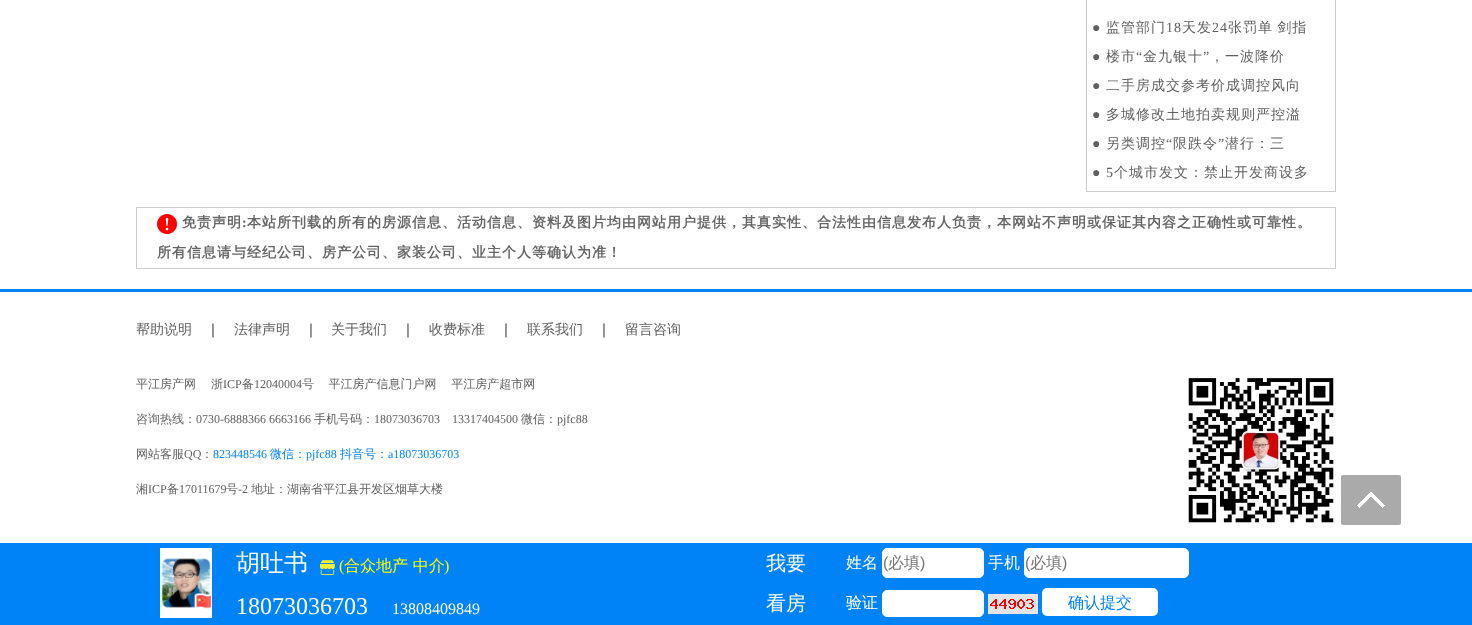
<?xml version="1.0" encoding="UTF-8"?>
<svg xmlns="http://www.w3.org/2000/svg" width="1472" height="625">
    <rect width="100%" height="100%" fill="#FFFFFF"/>
    <rect x="1086.5" y="-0.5" width="249" height="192" fill="none" stroke="#CCCCCC"/>
    <text x="1092" y="32" font-family="Liberation Serif" font-size="14" letter-spacing="1" fill="#606060">●</text>
    <text x="1106" y="32" font-family="WenQuanYi Zen Hei" font-size="14" font-weight="500" letter-spacing="1" fill="#606060">监管部门</text>
    <text x="1166" y="32" font-family="Liberation Serif" font-size="14" letter-spacing="1" fill="#606060">18</text>
    <text x="1182" y="32" font-family="WenQuanYi Zen Hei" font-size="14" font-weight="500" letter-spacing="1" fill="#606060">天发</text>
    <text x="1212" y="32" font-family="Liberation Serif" font-size="14" letter-spacing="1" fill="#606060">24</text>
    <text x="1228" y="32" word-spacing="-1" font-family="WenQuanYi Zen Hei" font-size="14" font-weight="500" letter-spacing="1" fill="#606060">张罚单 剑指</text>
    <text x="1106" y="61" font-family="WenQuanYi Zen Hei" font-size="14" font-weight="500" letter-spacing="1" fill="#606060">楼市</text>
    <text x="1136" y="61" font-family="Liberation Serif" font-size="14" letter-spacing="1" fill="#606060">“</text>
    <text x="1143" y="61" font-family="WenQuanYi Zen Hei" font-size="14" font-weight="500" letter-spacing="1" fill="#606060">金九银十</text>
    <text x="1203" y="61" font-family="Liberation Serif" font-size="14" letter-spacing="1" fill="#606060">”</text>
    <text x="1210" y="61" font-family="WenQuanYi Zen Hei" font-size="14" font-weight="500" letter-spacing="1" fill="#606060">，一波降价</text>
    <text x="1092" y="61" font-family="Liberation Serif" font-size="14" letter-spacing="1" fill="#606060">●</text>
    <text x="1092" y="90" font-family="Liberation Serif" font-size="14" letter-spacing="1" fill="#606060">●</text>
    <text x="1106" y="90" font-family="WenQuanYi Zen Hei" font-size="14" font-weight="500" letter-spacing="1" fill="#606060">二手房成交参考价成调控风向</text>
    <text x="1092" y="119" font-family="Liberation Serif" font-size="14" letter-spacing="1" fill="#606060">●</text>
    <text x="1106" y="119" font-family="WenQuanYi Zen Hei" font-size="14" font-weight="500" letter-spacing="1" fill="#606060">多城修改土地拍卖规则严控溢</text>
    <text x="1106" y="148" font-family="WenQuanYi Zen Hei" font-size="14" font-weight="500" letter-spacing="1" fill="#606060">另类调控</text>
    <text x="1166" y="148" font-family="Liberation Serif" font-size="14" letter-spacing="1" fill="#606060">“</text>
    <text x="1173" y="148" font-family="WenQuanYi Zen Hei" font-size="14" font-weight="500" letter-spacing="1" fill="#606060">限跌令</text>
    <text x="1218" y="148" font-family="Liberation Serif" font-size="14" letter-spacing="1" fill="#606060">”</text>
    <text x="1225" y="148" font-family="WenQuanYi Zen Hei" font-size="14" font-weight="500" letter-spacing="1" fill="#606060">潜行：三</text>
    <text x="1092" y="148" font-family="Liberation Serif" font-size="14" letter-spacing="1" fill="#606060">●</text>
    <text x="1092" y="177" font-family="Liberation Serif" font-size="14" letter-spacing="1" fill="#606060">● 5</text>
    <text x="1114" y="177" font-family="WenQuanYi Zen Hei" font-size="14" font-weight="500" letter-spacing="1" fill="#606060">个城市发文：禁止开发商设多</text>
    <rect x="0" y="543" width="1472" height="82" fill="#0083F6"/>
    <image x="160" y="548" width="52" height="70" href="img_01.png"/>
    <text x="236" y="571" font-family="WenQuanYi Zen Hei" font-size="24" font-weight="500" fill="#FFFFFF">胡吐书</text>
    <image x="320" y="560" width="15" height="15" href="img_02.png"/>
    <text x="339" y="571" font-family="Liberation Serif" font-size="16" fill="#FFFF00">(</text>
    <text x="344" y="571" font-family="WenQuanYi Zen Hei" font-size="16" font-weight="500" fill="#FFFF00">合众地产 中介</text>
    <text x="444" y="571" font-family="Liberation Serif" font-size="16" fill="#FFFF00">)</text>
    <text x="236" y="614" font-family="Liberation Serif" font-size="24" fill="#FFFFFF">18073036703</text>
    <text x="392" y="614" font-family="Liberation Serif" font-size="16" fill="#FFFFFF">13808409849</text>
    <text x="766" y="570" font-family="WenQuanYi Zen Hei" font-size="20" font-weight="500" fill="#FFFFFF">我要</text>
    <text x="766" y="610" font-family="WenQuanYi Zen Hei" font-size="20" font-weight="500" fill="#FFFFFF">看房</text>
    <text x="846" y="568" font-family="WenQuanYi Zen Hei" font-size="16" font-weight="500" fill="#FFFFFF">姓名</text>
    <rect x="882.5" y="548.5" width="101" height="29" rx="4.5" fill="#FFFFFF" stroke="#FFFFFF"/>
    <text x="883" y="568" font-family="Liberation Sans" font-size="16" fill="#757575">(</text>
    <text x="888" y="568" font-family="WenQuanYi Zen Hei" font-size="16" font-weight="500" fill="#757575">必填</text>
    <text x="920" y="568" font-family="Liberation Sans" font-size="16" fill="#757575">)</text>
    <text x="988" y="568" font-family="WenQuanYi Zen Hei" font-size="16" font-weight="500" fill="#FFFFFF">手机</text>
    <rect x="1024.5" y="548.5" width="164" height="29" rx="4.5" fill="#FFFFFF" stroke="#FFFFFF"/>
    <text x="1025" y="568" font-family="Liberation Sans" font-size="16" fill="#757575">(</text>
    <text x="1030" y="568" font-family="WenQuanYi Zen Hei" font-size="16" font-weight="500" fill="#757575">必填</text>
    <text x="1062" y="568" font-family="Liberation Sans" font-size="16" fill="#757575">)</text>
    <text x="846" y="608" font-family="WenQuanYi Zen Hei" font-size="16" font-weight="500" fill="#FFFFFF">验证</text>
    <rect x="882.5" y="590.5" width="101" height="26" rx="4.5" fill="#FFFFFF" stroke="#FFFFFF"/>
    <image x="988" y="594" width="50" height="20" href="img_03.png"/>
    <rect x="1042" y="588" width="116" height="28" rx="5" fill="#FFFFFF"/>
    <text x="1068" y="608" font-family="WenQuanYi Zen Hei" font-size="16" font-weight="500" fill="#0083F6">确认提交</text>
    <rect x="136.5" y="207.5" width="1199" height="61" fill="none" stroke="#CCCCCC"/>
    <image x="157" y="214" width="20" height="20" href="img_04.png"/>
    <text x="182" y="227" font-family="WenQuanYi Zen Hei" font-size="14" font-weight="700" letter-spacing="1" fill="#666666">免责声明</text>
    <text x="242" y="227" font-family="Liberation Serif" font-size="14" font-weight="700" letter-spacing="1" fill="#666666">:</text>
    <text x="247" y="227" font-family="WenQuanYi Zen Hei" font-size="14" font-weight="700" letter-spacing="1" fill="#666666">本站所刊载的所有的房源信息、活动信息、资料及图片均由网站用户提供，其真实性、合法性由信息发布人负责，本网站不声明或保证其内容之正确性或可靠性。</text>
    <text x="157" y="257" font-family="WenQuanYi Zen Hei" font-size="14" font-weight="700" letter-spacing="1" fill="#666666">所有信息请与经纪公司、房产公司、家装公司、业主个人等确认为准！</text>
    <rect x="0" y="289" width="1472" height="3" fill="#0083F6"/>
    <text x="136" y="334" font-family="WenQuanYi Zen Hei" font-size="14" font-weight="500" fill="#606060">帮助说明</text>
    <text x="206" y="334" font-family="WenQuanYi Zen Hei" font-size="14" font-weight="500" fill="#000000">｜</text>
    <text x="234" y="334" font-family="WenQuanYi Zen Hei" font-size="14" font-weight="500" fill="#606060">法律声明</text>
    <text x="304" y="334" font-family="WenQuanYi Zen Hei" font-size="14" font-weight="500" fill="#000000">｜</text>
    <text x="331" y="334" font-family="WenQuanYi Zen Hei" font-size="14" font-weight="500" fill="#606060">关于我们</text>
    <text x="401" y="334" font-family="WenQuanYi Zen Hei" font-size="14" font-weight="500" fill="#000000">｜</text>
    <text x="429" y="334" font-family="WenQuanYi Zen Hei" font-size="14" font-weight="500" fill="#606060">收费标准</text>
    <text x="499" y="334" font-family="WenQuanYi Zen Hei" font-size="14" font-weight="500" fill="#000000">｜</text>
    <text x="527" y="334" font-family="WenQuanYi Zen Hei" font-size="14" font-weight="500" fill="#606060">联系我们</text>
    <text x="597" y="334" font-family="WenQuanYi Zen Hei" font-size="14" font-weight="500" fill="#000000">｜</text>
    <text x="625" y="334" font-family="WenQuanYi Zen Hei" font-size="14" font-weight="500" fill="#606060">留言咨询</text>
    <text x="136" y="388" font-family="WenQuanYi Zen Hei" font-size="12" font-weight="500" fill="#606060">平江房产网</text>
    <text x="211" y="388" font-family="WenQuanYi Zen Hei" font-size="12" font-weight="500" fill="#606060">浙</text>
    <text x="223" y="388" font-family="Liberation Serif" font-size="12" fill="#606060">ICP</text>
    <text x="242" y="388" font-family="WenQuanYi Zen Hei" font-size="12" font-weight="500" fill="#606060">备</text>
    <text x="254" y="388" font-family="Liberation Serif" font-size="12" fill="#606060">12040004</text>
    <text x="302" y="388" word-spacing="-1" font-family="WenQuanYi Zen Hei" font-size="12" font-weight="500" fill="#606060">号 　平江房产信息门户网 　平江房产超市网</text>
    <text x="136" y="423" font-family="WenQuanYi Zen Hei" font-size="12" font-weight="500" fill="#606060">咨询热线：</text>
    <text x="196" y="423" font-family="Liberation Serif" font-size="12" fill="#606060">0730-6888366 6663166</text>
    <text x="314" y="423" font-family="WenQuanYi Zen Hei" font-size="12" font-weight="500" fill="#606060">手机号码：</text>
    <text x="374" y="423" font-family="Liberation Serif" font-size="12" fill="#606060">18073036703</text>
    <text x="452" y="423" font-family="Liberation Serif" font-size="12" fill="#606060">13317404500</text>
    <text x="521" y="423" font-family="WenQuanYi Zen Hei" font-size="12" font-weight="500" fill="#606060">微信：</text>
    <text x="557" y="423" font-family="Liberation Serif" font-size="12" fill="#606060">pjfc88</text>
    <text x="136" y="458" font-family="WenQuanYi Zen Hei" font-size="12" font-weight="500" fill="#606060">网站客服</text>
    <text x="184" y="458" font-family="Liberation Serif" font-size="12" fill="#606060">QQ</text>
    <text x="201" y="458" font-family="WenQuanYi Zen Hei" font-size="12" font-weight="500" fill="#606060">：</text>
    <text x="213" y="458" font-family="Liberation Serif" font-size="12" fill="#0083F6">823448546</text>
    <text x="270" y="458" font-family="WenQuanYi Zen Hei" font-size="12" font-weight="500" fill="#0083F6">微信：</text>
    <text x="306" y="458" font-family="Liberation Serif" font-size="12" fill="#0083F6">pjfc88</text>
    <text x="340" y="458" font-family="WenQuanYi Zen Hei" font-size="12" font-weight="500" fill="#0083F6">抖音号：</text>
    <text x="388" y="458" font-family="Liberation Serif" font-size="12" fill="#0083F6">a18073036703</text>
    <text x="136" y="493" font-family="WenQuanYi Zen Hei" font-size="12" font-weight="500" fill="#606060">湘</text>
    <text x="148" y="493" font-family="Liberation Serif" font-size="12" fill="#606060">ICP</text>
    <text x="167" y="493" font-family="WenQuanYi Zen Hei" font-size="12" font-weight="500" fill="#606060">备</text>
    <text x="179" y="493" font-family="Liberation Serif" font-size="12" fill="#606060">17011679</text>
    <text x="226" y="493" font-family="WenQuanYi Zen Hei" font-size="12" font-weight="500" fill="#606060">号</text>
    <text x="238" y="493" font-family="Liberation Serif" font-size="12" fill="#606060">-2</text>
    <text x="251" y="493" font-family="WenQuanYi Zen Hei" font-size="12" font-weight="500" fill="#606060">地址：湖南省平江县开发区烟草大楼</text>
    <image x="1188" y="378" width="146" height="145" href="img_05.png"/>
    <image x="1341" y="475" width="60" height="50" href="img_06.png"/>
</svg>
